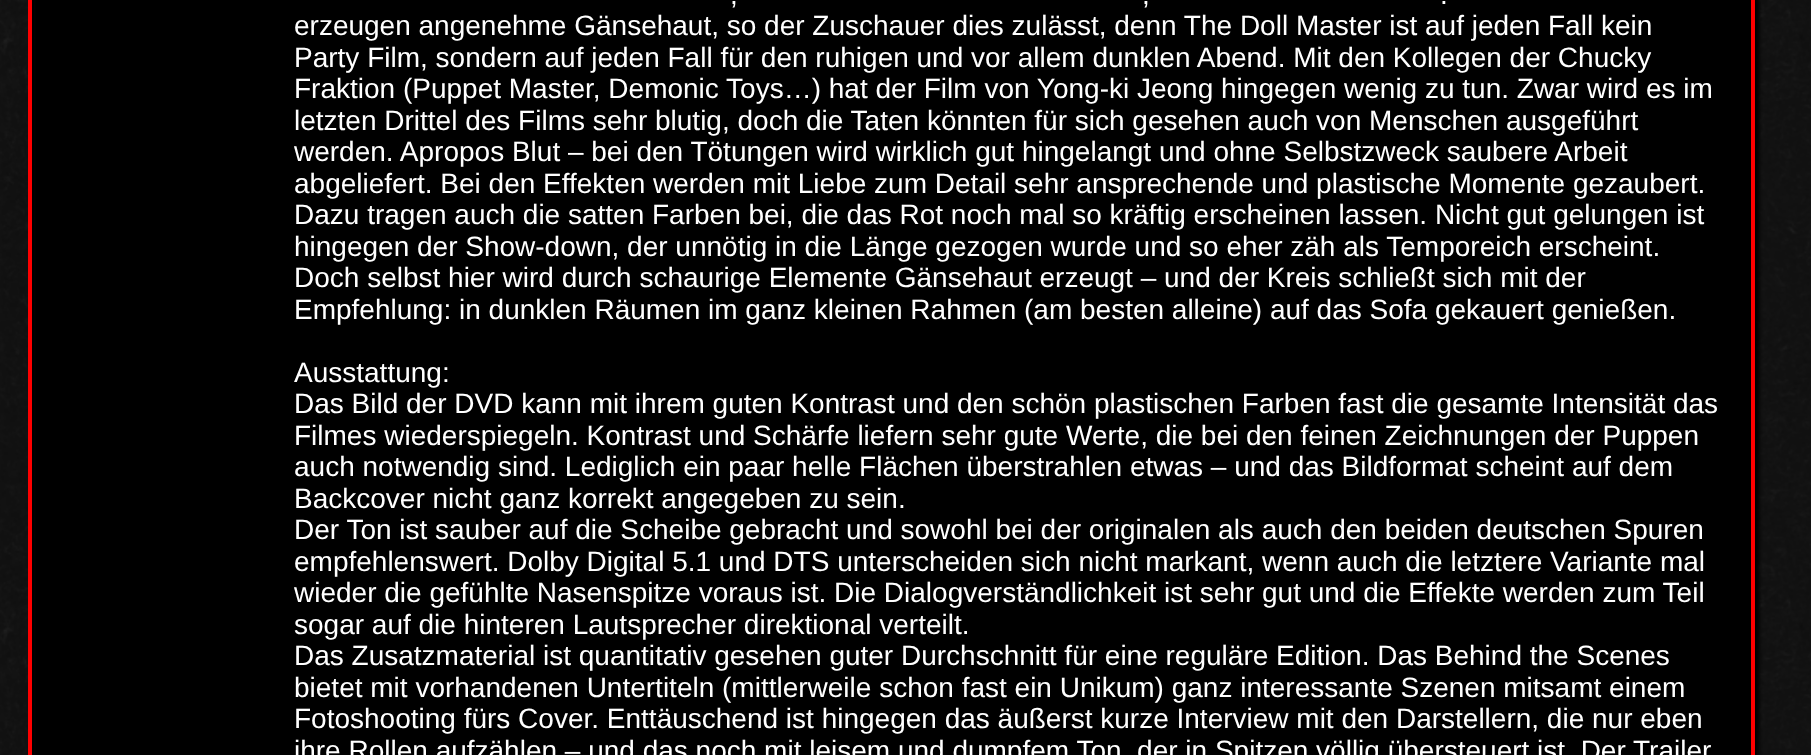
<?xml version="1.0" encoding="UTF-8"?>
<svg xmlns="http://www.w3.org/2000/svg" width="1811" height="755">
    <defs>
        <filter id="blur1" x="-50%" y="-200%" width="200%" height="500%"><feGaussianBlur stdDeviation="2"/></filter>
    </defs>
    <rect width="100%" height="100%" fill="#FFFFFF"/>
    <image x="0" y="0" width="1811" height="755" href="img_01.png"/>
    <rect x="32" y="-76" width="1727" height="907" rx="70" fill="#000000" filter="url(#blur1)"/>
    <rect x="32" y="0" width="2" height="755" fill="#000000"/>
    <rect x="30" y="-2" width="1723" height="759" fill="none" stroke="#FF0000" stroke-width="4"/>
    <text x="730" y="4" font-family="Liberation Sans" font-size="28" fill="#FFFFFF">,</text>
    <text x="1142" y="4" font-family="Liberation Sans" font-size="28" fill="#FFFFFF">,</text>
    <text x="1440" y="4" font-family="Liberation Sans" font-size="28" fill="#FFFFFF">.</text>
    <text font-family="Liberation Sans" font-size="28" fill="#FFFFFF">
        <tspan x="294" y="35">erzeugen angenehme Gänsehaut, so der Zuschauer dies zulässt, denn The Doll Master ist auf jeden Fall kein</tspan>
        <tspan x="294" y="67">Party Film, sondern auf jeden Fall für den ruhigen und vor allem dunklen Abend. Mit den Kollegen der Chucky</tspan>
        <tspan x="294" y="98">Fraktion (Puppet Master, Demonic Toys…) hat der Film von Yong-ki Jeong hingegen wenig zu tun. Zwar wird es im</tspan>
        <tspan x="294" y="130">letzten Drittel des Films sehr blutig, doch die Taten könnten für sich gesehen auch von Menschen ausgeführt</tspan>
        <tspan x="294" y="161">werden. Apropos Blut – bei den Tötungen wird wirklich gut hingelangt und ohne Selbstzweck saubere Arbeit</tspan>
        <tspan x="294" y="193">abgeliefert. Bei den Effekten werden mit Liebe zum Detail sehr ansprechende und plastische Momente gezaubert.</tspan>
        <tspan x="294" y="224">Dazu tragen auch die satten Farben bei, die das Rot noch mal so kräftig erscheinen lassen. Nicht gut gelungen ist</tspan>
        <tspan x="294" y="256">hingegen der Show-down, der unnötig in die Länge gezogen wurde und so eher zäh als Temporeich erscheint.</tspan>
        <tspan x="294" y="287">Doch selbst hier wird durch schaurige Elemente Gänsehaut erzeugt – und der Kreis schließt sich mit der</tspan>
        <tspan x="294" y="319">Empfehlung: in dunklen Räumen im ganz kleinen Rahmen (am besten alleine) auf das Sofa gekauert genießen.</tspan>
    </text>
    <text font-family="Liberation Sans" font-size="28" fill="#FFFFFF">
        <tspan x="294" y="382">Ausstattung:</tspan>
        <tspan x="294" y="413">Das Bild der DVD kann mit ihrem guten Kontrast und den schön plastischen Farben fast die gesamte Intensität das</tspan>
        <tspan x="294" y="445">Filmes wiederspiegeln. Kontrast und Schärfe liefern sehr gute Werte, die bei den feinen Zeichnungen der Puppen</tspan>
        <tspan x="294" y="476">auch notwendig sind. Lediglich ein paar helle Flächen überstrahlen etwas – und das Bildformat scheint auf dem</tspan>
        <tspan x="294" y="508">Backcover nicht ganz korrekt angegeben zu sein.</tspan>
        <tspan x="294" y="539">Der Ton ist sauber auf die Scheibe gebracht und sowohl bei der originalen als auch den beiden deutschen Spuren</tspan>
        <tspan x="294" y="571">empfehlenswert. Dolby Digital 5.1 und DTS unterscheiden sich nicht markant, wenn auch die letztere Variante mal</tspan>
        <tspan x="294" y="602">wieder die gefühlte Nasenspitze voraus ist. Die Dialogverständlichkeit ist sehr gut und die Effekte werden zum Teil</tspan>
        <tspan x="294" y="634">sogar auf die hinteren Lautsprecher direktional verteilt.</tspan>
        <tspan x="294" y="665">Das Zusatzmaterial ist quantitativ gesehen guter Durchschnitt für eine reguläre Edition. Das Behind the Scenes</tspan>
        <tspan x="294" y="697">bietet mit vorhandenen Untertiteln (mittlerweile schon fast ein Unikum) ganz interessante Szenen mitsamt einem</tspan>
        <tspan x="294" y="728">Fotoshooting fürs Cover. Enttäuschend ist hingegen das äußerst kurze Interview mit den Darstellern, die nur eben</tspan>
        <tspan x="294" y="760">ihre Rollen aufzählen – und das noch mit leisem und dumpfem Ton, der in Spitzen völlig übersteuert ist. Der Trailer</tspan>
    </text>
</svg>
